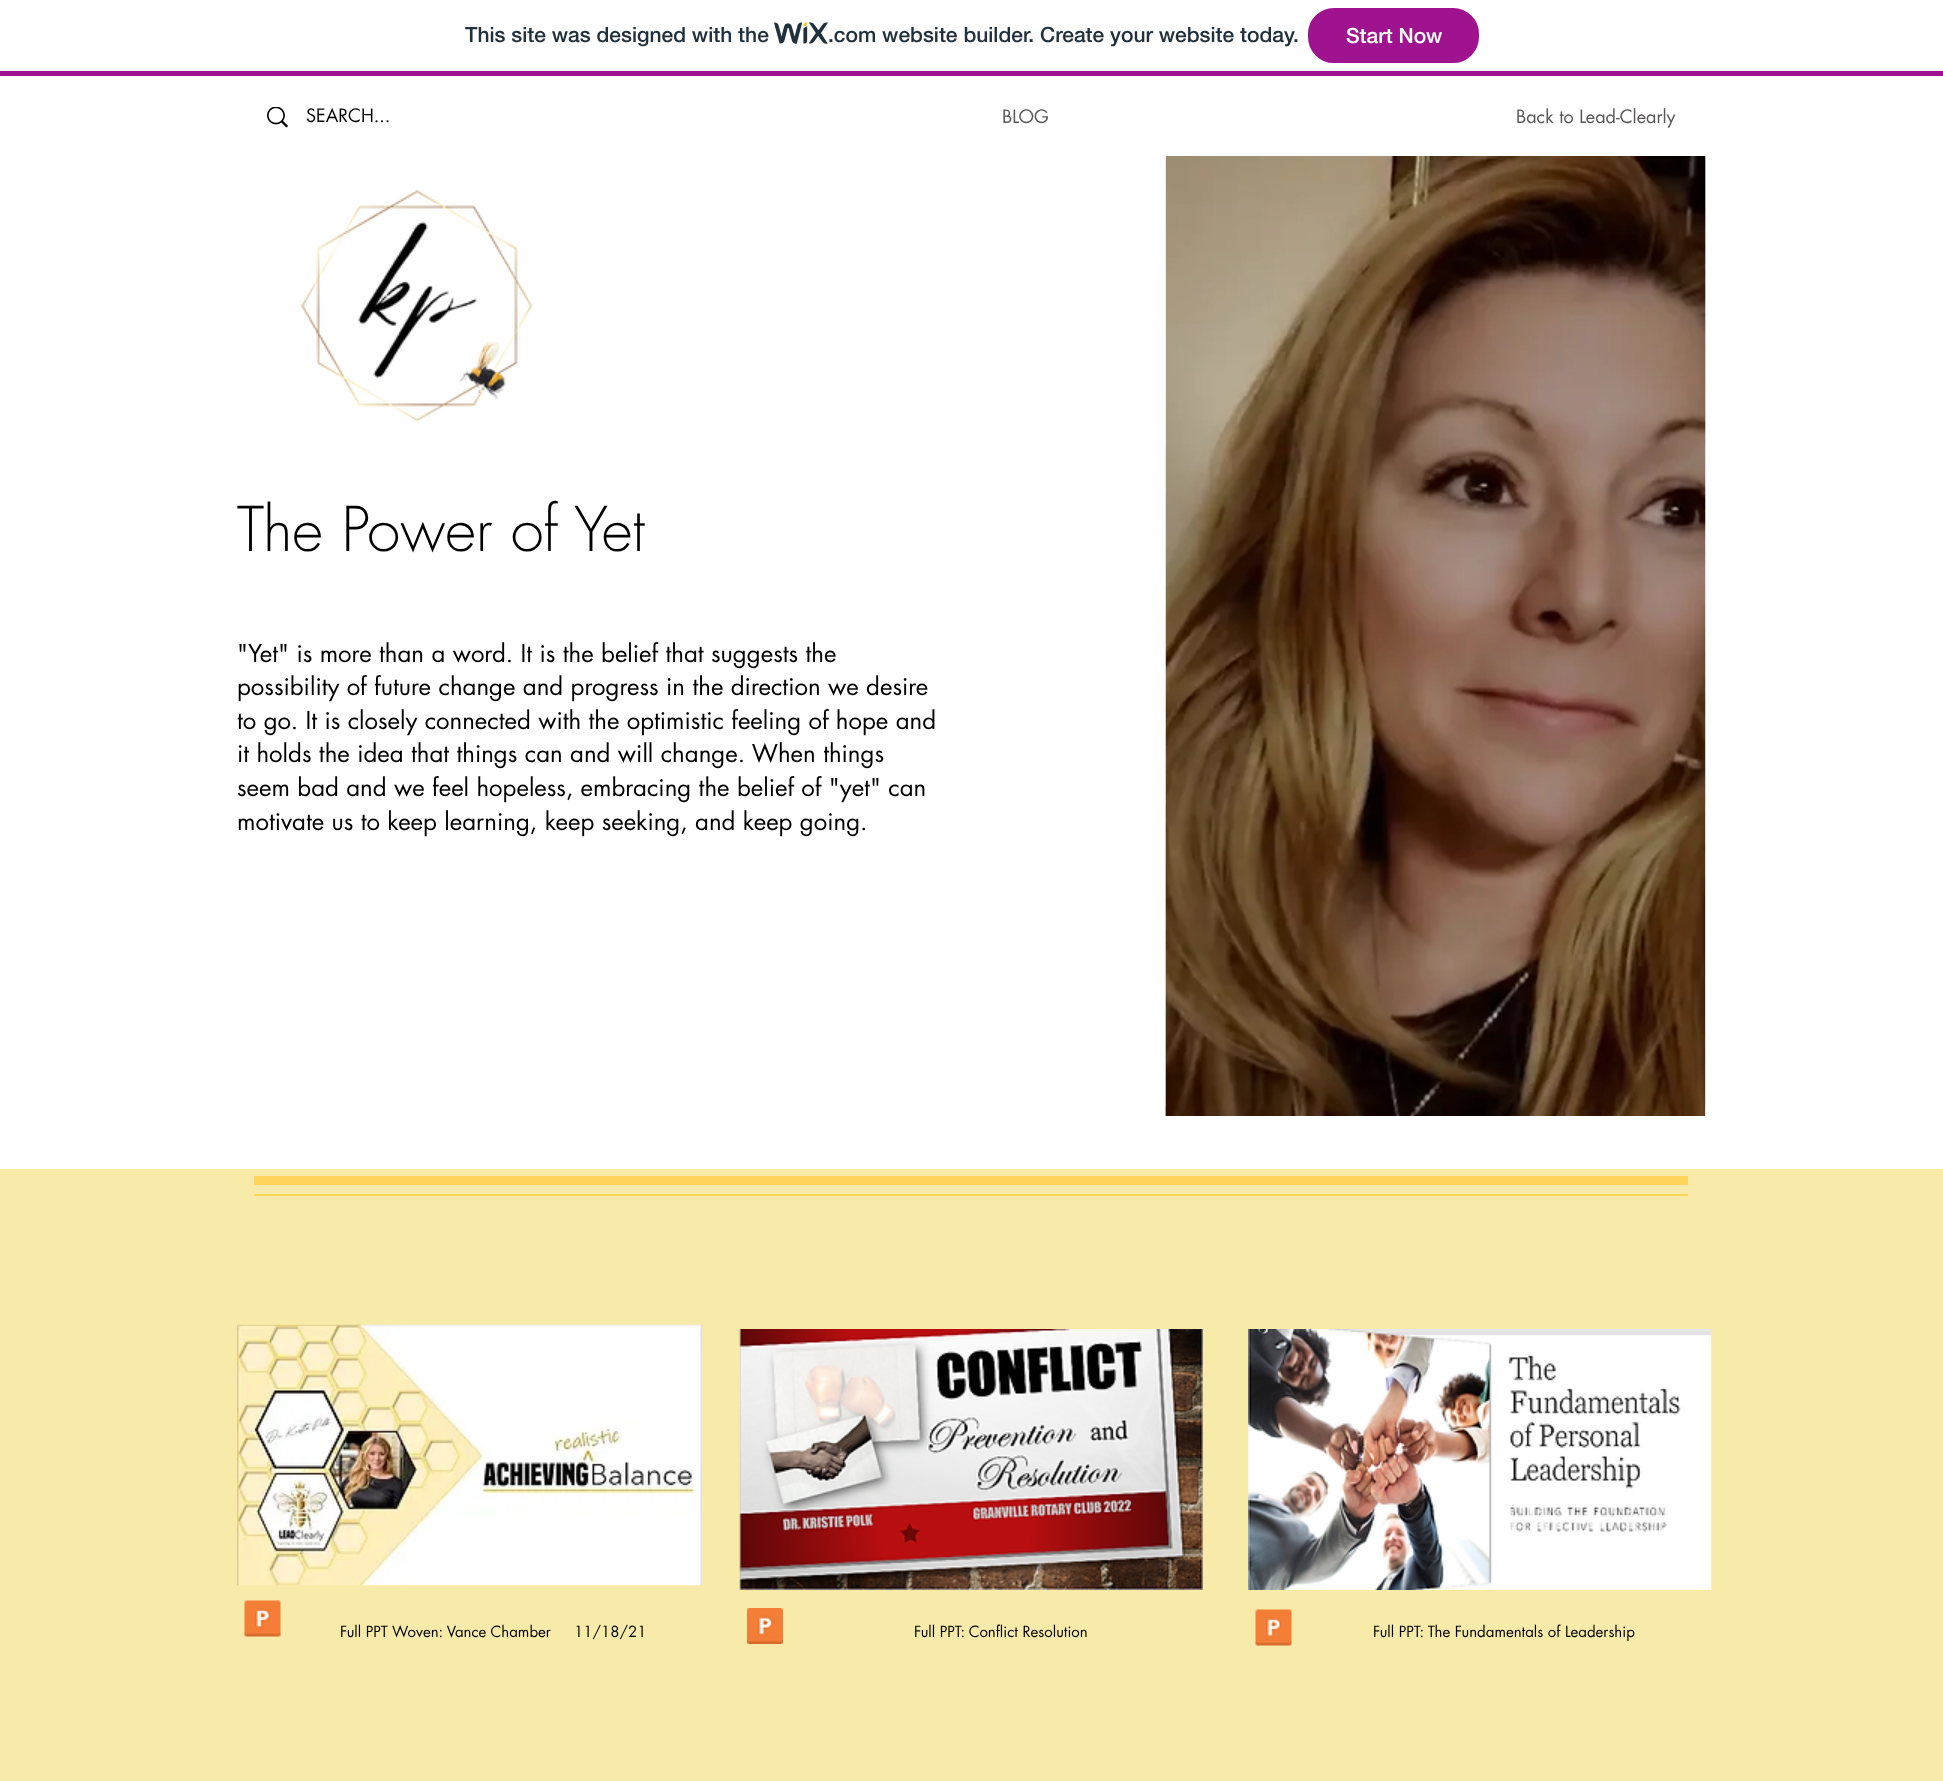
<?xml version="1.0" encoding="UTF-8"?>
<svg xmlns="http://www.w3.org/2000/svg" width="1943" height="1781">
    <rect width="100%" height="100%" fill="#FFFFFF"/>
    <rect x="0" y="71" width="1943" height="5" fill="#A0138E"/>
    <text x="465" y="42" font-family="'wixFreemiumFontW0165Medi'" font-size="21" font-weight="500" fill="#20303C">This site was designed with the</text>
    <image x="774" y="22" width="54" height="22" href="img_01.png"/>
    <text x="828" y="42" font-family="'wixFreemiumFontW0165Medi'" font-size="21" font-weight="500" fill="#20303C">.com website builder. Create your website today.</text>
    <rect x="1309" y="9" width="169" height="53" rx="25" fill="#A0138E" stroke="#A0138E" stroke-width="2"/>
    <text x="1346" y="43" font-family="'wixFreemiumFontW0165Medi'" font-size="21" font-weight="500" fill="#FFFFFF">Start Now</text>
    <image x="267" y="107" width="21" height="21" href="img_02.png"/>
    <text x="306" y="122" font-family="futura" font-size="18" fill="#000000">SEARCH...</text>
    <text x="1002" y="123" font-family="futura" font-size="18" fill="#585656">BLOG</text>
    <text x="1516" y="123" font-family="futura" font-size="18" fill="#585656">Back to Lead-Clearly</text>
    <image x="301" y="190" width="232" height="232" href="img_03.png"/>
    <image x="1165" y="156" width="541" height="960" href="img_04.png"/>
    <text x="237" y="551" font-family="futura" font-size="60" font-weight="300" fill="#000000">The Power of Yet</text>
    <text font-family="futura" font-size="24" fill="#000000">
        <tspan x="237" y="662">"Yet" is more than a word. It is the belief that suggests the</tspan>
        <tspan x="237" y="695">possibility of future change and progress in the direction we desire</tspan>
        <tspan x="237" y="729">to go. It is closely connected with the optimistic feeling of hope and</tspan>
        <tspan x="237" y="762">it holds the idea that things can and will change. When things</tspan>
        <tspan x="237" y="796">seem bad and we feel hopeless, embracing the belief of "yet" can</tspan>
        <tspan x="237" y="830">motivate us to keep learning, keep seeking, and keep going.</tspan>
    </text>
    <rect x="0" y="1169" width="1943" height="612" fill="#F8EBA9"/>
    <rect x="254" y="1176" width="1434" height="9" fill="#FFD45A"/>
    <rect x="254" y="1194" width="1434" height="2" fill="#FFD45A"/>
    <image x="237" y="1324" width="465" height="262" href="img_05.png"/>
    <image x="739" y="1329" width="464" height="261" href="img_06.png"/>
    <image x="1248" y="1329" width="464" height="261" href="img_07.png"/>
    <image x="244" y="1600" width="37" height="37" href="img_08.png"/>
    <text x="340" y="1637" font-family="futura" font-size="15" fill="#000000" xml:space="preserve">Full PPT Woven: Vance Chamber     11/18/21</text>
    <image x="747" y="1608" width="36" height="36" href="img_09.png"/>
    <text x="914" y="1637" font-family="futura" font-size="15" fill="#000000">Full PPT: Conflict Resolution</text>
    <image x="1255" y="1609" width="37" height="37" href="img_08.png"/>
    <text x="1373" y="1637" font-family="futura" font-size="15" fill="#000000">Full PPT: The Fundamentals of Leadership</text>
</svg>
